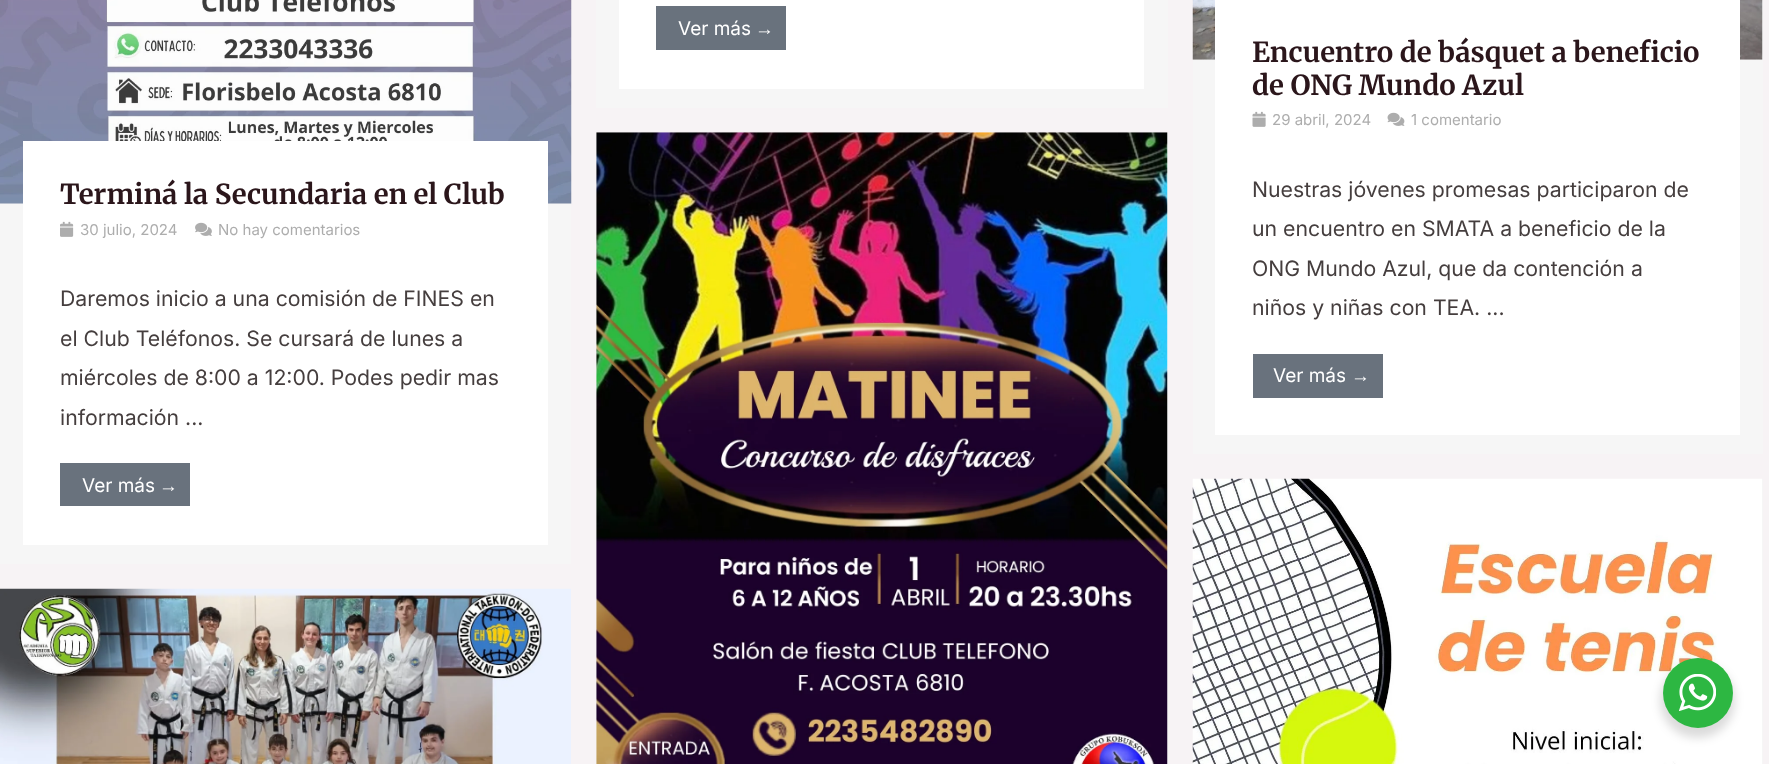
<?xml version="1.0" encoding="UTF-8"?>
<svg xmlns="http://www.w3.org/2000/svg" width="1769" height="764">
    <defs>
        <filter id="blur1" x="-50%" y="-200%" width="200%" height="500%"><feGaussianBlur stdDeviation="5"/></filter>
    </defs>
    <rect width="100%" height="100%" fill="#F7F3F5"/>
    <rect x="596" y="0" width="572" height="108" fill="#F6F6F6"/>
    <rect x="619" y="0" width="525" height="89" fill="#FFFFFF"/>
    <rect x="656" y="6" width="130" height="44" fill="#69727D"/>
    <text x="678" y="35" font-family="Inter" font-size="19" fill="#FFFFFF">Ver más</text>
    <text x="755" y="35" font-family="Liberation Sans" font-size="19" fill="#FFFFFF">→</text>
    <rect x="0" y="0" width="571" height="564" fill="#F6F6F6"/>
    <image x="0" y="0" width="572" height="204" href="img_01.png"/>
    <rect x="23" y="141" width="525" height="404" fill="#FFFFFF"/>
    <text x="60" y="204" font-family="Merriweather" font-size="27.5" font-weight="700" fill="#2B161B">Terminá la Secundaria en el Club</text>
    <image x="60" y="221" width="14" height="16" href="img_02.png"/>
    <text x="80" y="235" font-family="Inter" font-size="15" fill="#ADADAD">30 julio, 2024</text>
    <image x="195" y="222" width="17" height="14" href="img_03.png"/>
    <text x="218" y="235" font-family="Inter" font-size="15" fill="#ADADAD">No hay comentarios</text>
    <text font-family="Inter" font-size="21.25" fill="#453E3E">
        <tspan x="60" y="306">Daremos inicio a una comisión de FINES en</tspan>
        <tspan x="60" y="346">el Club Teléfonos. Se cursará de lunes a</tspan>
        <tspan x="60" y="385">miércoles de 8:00 a 12:00. Podes pedir mas</tspan>
        <tspan x="60" y="425">información ...</tspan>
    </text>
    <rect x="60" y="463" width="130" height="43" fill="#69727D"/>
    <text x="82" y="492" font-family="Inter" font-size="19" fill="#FFFFFF">Ver más</text>
    <text x="159" y="492" font-family="Liberation Sans" font-size="19" fill="#FFFFFF">→</text>
    <rect x="596" y="133" width="572" height="631" fill="#F6F6F6"/>
    <image x="596" y="132" width="572" height="632" href="img_04.png"/>
    <rect x="1193" y="0" width="570" height="454" fill="#F6F6F6"/>
    <image x="1192" y="0" width="571" height="60" href="img_05.png"/>
    <rect x="1215" y="0" width="525" height="435" fill="#FFFFFF"/>
    <text font-family="Merriweather" font-size="27.5" font-weight="700" fill="#2B161B">
        <tspan x="1252" y="62">Encuentro de básquet a beneficio</tspan>
        <tspan x="1252" y="95">de ONG Mundo Azul</tspan>
    </text>
    <image x="1252" y="111" width="14" height="16" href="img_06.png"/>
    <text x="1272" y="125" font-family="Inter" font-size="15" fill="#ADADAD">29 abril, 2024</text>
    <image x="1387" y="112" width="18" height="14" href="img_07.png"/>
    <text x="1411" y="125" font-family="Inter" font-size="15" fill="#ADADAD">1 comentario</text>
    <text font-family="Inter" font-size="21.25" fill="#453E3E">
        <tspan x="1252" y="197">Nuestras jóvenes promesas participaron de</tspan>
        <tspan x="1252" y="236">un encuentro en SMATA a beneficio de la</tspan>
        <tspan x="1252" y="276">ONG Mundo Azul, que da contención a</tspan>
        <tspan x="1252" y="315">niños y niñas con TEA. ...</tspan>
    </text>
    <rect x="1253" y="354" width="130" height="44" fill="#69727D"/>
    <text x="1273" y="382" font-family="Inter" font-size="19" fill="#FFFFFF">Ver más</text>
    <text x="1351" y="382" font-family="Liberation Sans" font-size="19" fill="#FFFFFF">→</text>
    <image x="0" y="588" width="571" height="176" href="img_08.png"/>
    <rect x="1762" y="479" width="1" height="285" fill="#F6F6F6"/>
    <image x="1192" y="478" width="570" height="286" href="img_09.png"/>
    <rect x="1660" y="663" width="75" height="75" rx="37.5" fill="#000000" fill-opacity="0.14" filter="url(#blur1)"/>
    <circle cx="1698" cy="693" r="35" fill="#2DB742"/>
    <image x="1679" y="674" width="37" height="37" href="img_10.png"/>
</svg>
